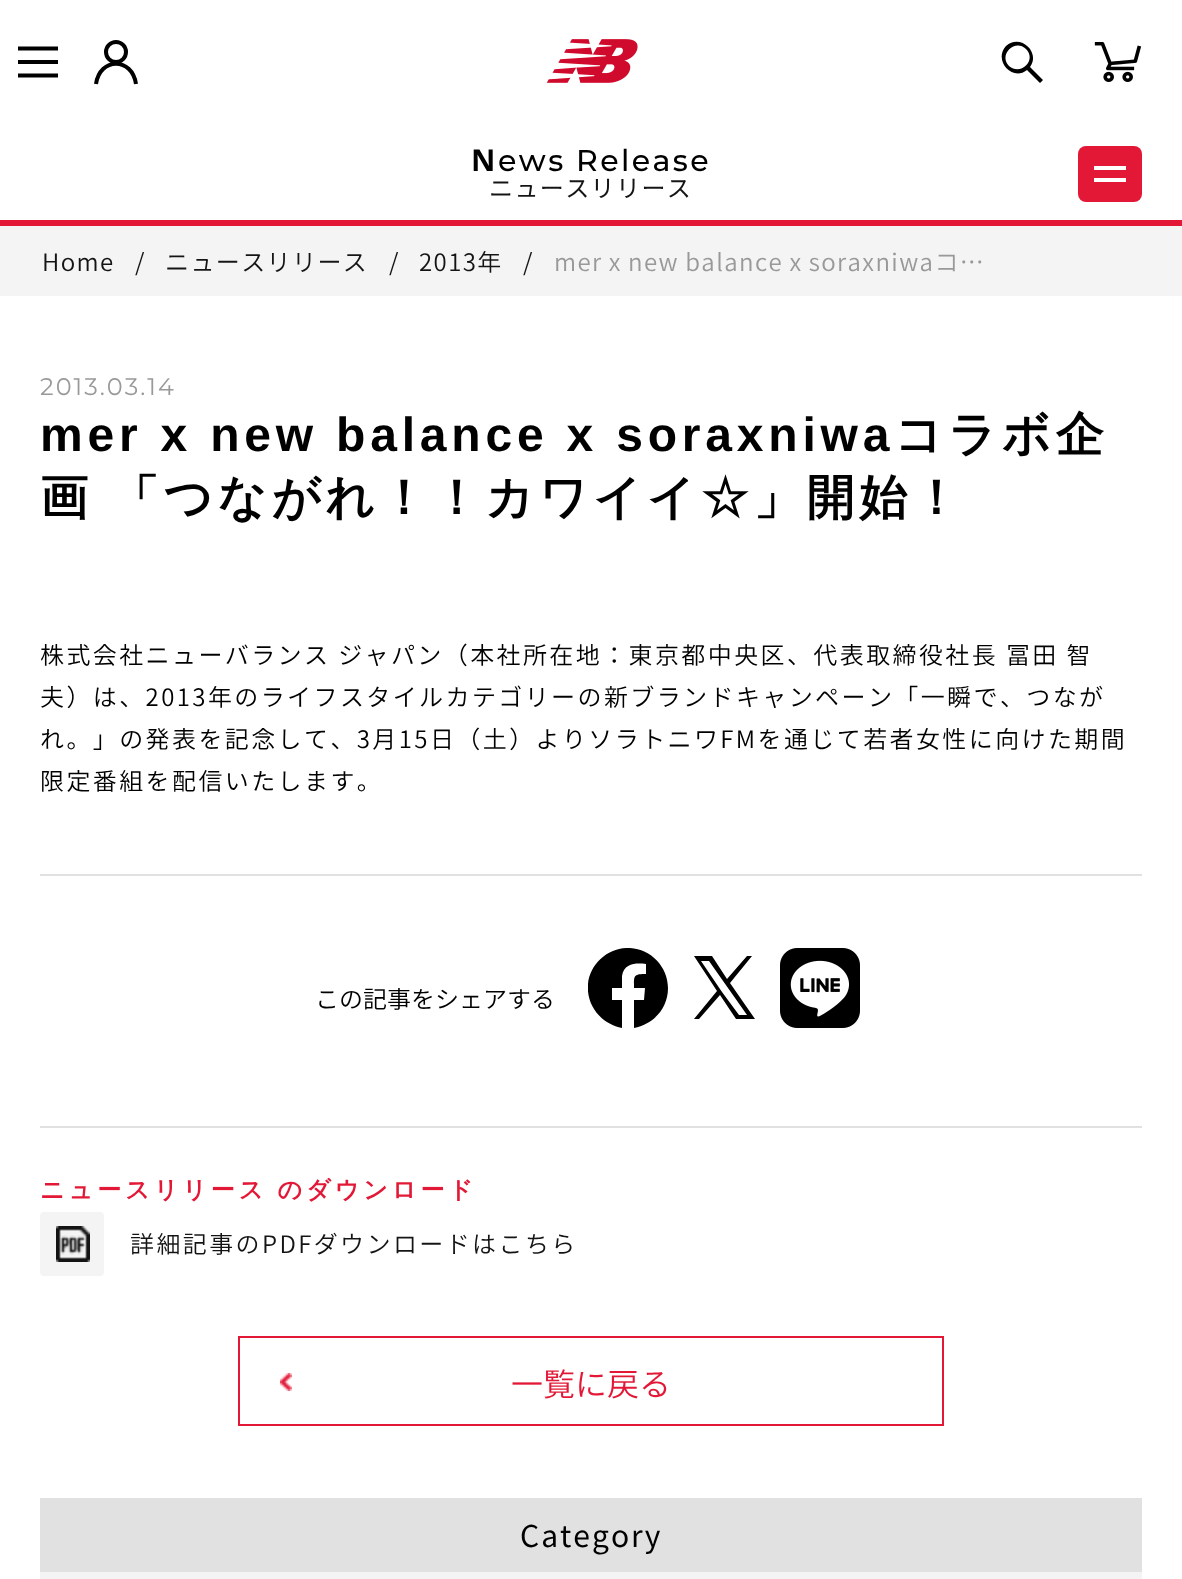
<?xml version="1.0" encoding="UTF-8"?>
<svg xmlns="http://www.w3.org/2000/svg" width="1182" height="1579">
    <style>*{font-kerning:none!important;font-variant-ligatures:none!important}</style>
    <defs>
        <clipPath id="clip1"><rect x="588" y="948" width="80" height="80"/></clipPath>
    </defs>
    <rect width="100%" height="100%" fill="#FFFFFF"/>
    <path d="M 18 75.5 H 58 M 18 48.5 H 58 Z M 18 62 H 58 Z" fill="none" stroke="#000000" stroke-width="4"/>
    <path d="M 96 84 C 100 57 132 57 136 84" fill="none" stroke="#000000" stroke-width="4"/>
    <circle cx="116" cy="52" r="10" fill="none" stroke="#000000" stroke-width="4"/>
    <image x="546" y="39" width="92" height="44" href="img_01.png"/>
    <path d="M 1006 46 C 1020 33 1041 52 1030 67 L 1043 80 L 1040 83 L 1027 70 C 1012 82 993 60 1006 46 Z M 1026 49 C 1015 38 998 55 1009 66 C 1021 76 1037 60 1026 49 Z" fill="#000000"/>
    <image x="1094" y="42" width="48" height="40" href="img_02.png"/>
    <rect x="0" y="220" width="1182" height="6" fill="#E21836"/>
    <text x="471" y="171" font-family="Noto Sans" font-size="30" font-weight="700" letter-spacing="2.4" fill="#000000">N</text>
    <text x="498" y="171" font-family="Montserrat" font-size="30" font-weight="500" letter-spacing="2.4" fill="#000000">ews Release</text>
    <rect x="1078" y="146" width="64" height="56" rx="8" fill="#E21836"/>
    <rect x="1094" y="166" width="32" height="4" fill="#FFFFFF"/>
    <rect x="1094" y="178" width="32" height="4" fill="#FFFFFF"/>
    <text x="489" y="197" font-family="Noto Sans JP" font-size="24" letter-spacing="1.4" fill="#141414">ニュースリリース</text>
    <rect x="0" y="226" width="1182" height="70" fill="#F4F4F4"/>
    <text x="42" y="271" font-family="Noto Sans JP" font-size="24" font-weight="300" letter-spacing="1.4" fill="#141414">Home</text>
    <text x="135" y="271" font-family="Noto Sans JP" font-size="24" font-weight="300" letter-spacing="1.4" fill="#141414">/</text>
    <text x="165" y="271" font-family="Noto Sans JP" font-size="24" font-weight="300" letter-spacing="1.4" fill="#141414">ニュースリリース</text>
    <text x="389" y="271" font-family="Noto Sans JP" font-size="24" font-weight="300" letter-spacing="1.4" fill="#141414">/</text>
    <text x="419" y="271" font-family="Noto Sans JP" font-size="24" font-weight="300" letter-spacing="1.4" fill="#141414">2013年</text>
    <text x="523" y="271" font-family="Noto Sans JP" font-size="24" font-weight="300" letter-spacing="1.4" fill="#141414">/</text>
    <text x="554" y="271" word-spacing="-0.5" font-family="Noto Sans JP" font-size="24" font-weight="300" letter-spacing="1.4" fill="#999999">mer x new balance x soraxniwaコ…</text>
    <text x="40" y="395" font-family="Montserrat" font-size="24" letter-spacing="2" fill="#999999">2013.03.14</text>
    <text x="40" y="451" font-family="Liberation Sans" font-size="48" font-weight="700" letter-spacing="4.8" fill="#000000">mer x new balance x soraxniwa</text>
    <text x="894" y="451" font-family="WenQuanYi Zen Hei" font-size="48" font-weight="700" letter-spacing="4.8" fill="#000000">コラボ企</text>
    <text x="40" y="514" word-spacing="-1" font-family="WenQuanYi Zen Hei" font-size="48" font-weight="700" letter-spacing="4.8" fill="#000000">画 「つながれ！！カワイイ☆」開始！</text>
    <text font-family="Noto Sans JP" font-size="24" font-weight="300" letter-spacing="2.4" fill="#000000">
        <tspan x="40" y="664">株式会社ニューバランス ジャパン（本社所在地：東京都中央区、代表取締役社長 冨田 智</tspan>
        <tspan x="40" y="706">夫）は、2013年のライフスタイルカテゴリーの新ブランドキャンペーン「一瞬で、つなが</tspan>
        <tspan x="40" y="748">れ。」の発表を記念して、3月15日（土）よりソラトニワFMを通じて若者女性に向けた期間</tspan>
        <tspan x="40" y="790">限定番組を配信いたします。</tspan>
    </text>
    <rect x="40" y="874" width="1102" height="2" fill="#E1E1E1"/>
    <text x="315" y="1008" font-family="Noto Sans JP" font-size="24" font-weight="300" fill="#000000">この記事をシェアする</text>
    <g clip-path="url(#clip1)">
        <path d="M 668 988 C 668 967 651 949 630 948 C 609 947 590 963 588 984 C 586 1005 601 1024 622 1028 V 1000 H 612 V 988 H 622 V 976 C 624 963 636 963 646 964 V 974 C 633 974 634 976 634 988 H 645 L 644 1000 H 634 V 1028 C 654 1024 668 1008 668 988 Z" fill="#000000"/>
    </g>
    <path d="M 730 983 L 752 956 H 747 L 727 979 L 712 956 H 694 L 717 991 L 694 1019 H 699 L 720 995 L 736 1019 H 755 Z M 722 992 L 701 961 H 709 L 747 1015 H 739 Z" fill="#000000"/>
    <image x="780" y="948" width="80" height="80" href="img_03.png"/>
    <rect x="40" y="1126" width="1102" height="2" fill="#E1E1E1"/>
    <text x="40" y="1198" word-spacing="-1" font-family="WenQuanYi Zen Hei" font-size="24" font-weight="700" letter-spacing="4" fill="#E21836">ニュースリリース のダウンロード</text>
    <rect x="40" y="1212" width="64" height="64" rx="4" fill="#F4F4F4"/>
    <image x="56" y="1226" width="34" height="36" href="img_04.png"/>
    <text x="130" y="1253" font-family="Noto Sans JP" font-size="24" font-weight="300" letter-spacing="2.4" fill="#141414">詳細記事のPDFダウンロードはこちら</text>
    <rect x="239" y="1337" width="704" height="88" fill="none" stroke="#E21836" stroke-width="2"/>
    <image x="280" y="1373" width="12" height="18" href="img_05.png"/>
    <text x="511" y="1396" font-family="Noto Sans JP" font-size="32" font-weight="300" fill="#E21836">一覧に戻る</text>
    <rect x="40" y="1572" width="1102" height="7" fill="#F4F4F4"/>
    <rect x="40" y="1498" width="1102" height="74" fill="#E1E1E1"/>
    <text x="520" y="1547" font-family="Noto Sans JP" font-size="30" letter-spacing="2" fill="#000000">Category</text>
</svg>
